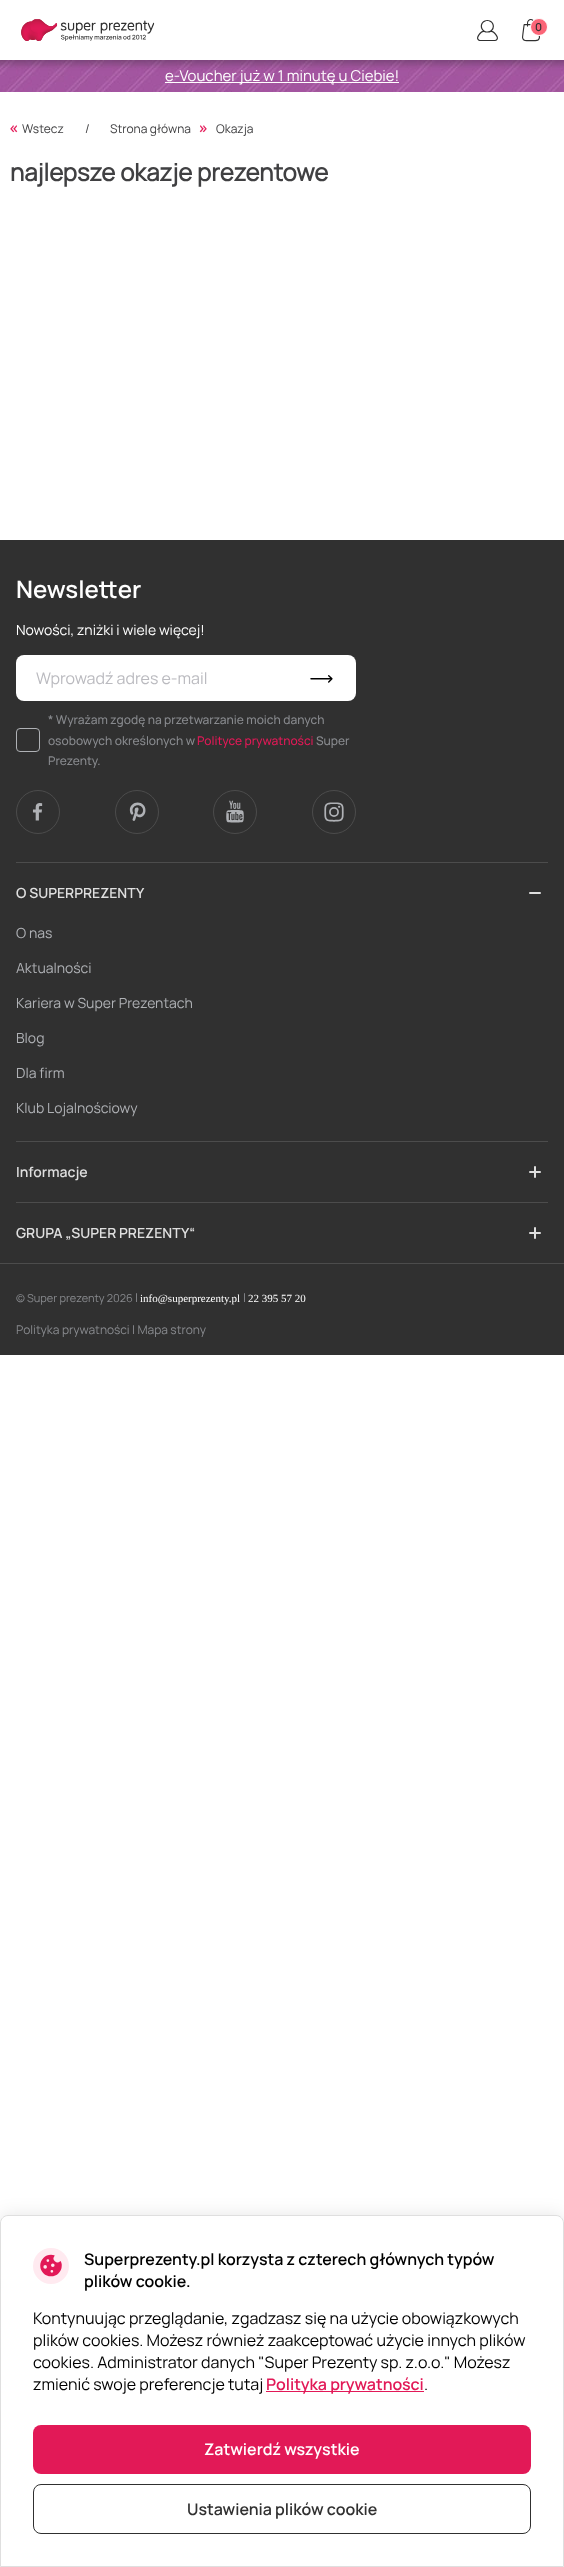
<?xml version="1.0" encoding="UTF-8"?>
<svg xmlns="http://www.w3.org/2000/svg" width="564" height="2567">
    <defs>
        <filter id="blur1" x="-50%" y="-200%" width="200%" height="500%"><feGaussianBlur stdDeviation="9"/></filter>
    </defs>
    <rect width="100%" height="100%" fill="#FFFFFF"/>
    <image x="21" y="19" width="134" height="22" href="img_01.png"/>
    <image x="477" y="20" width="21" height="21" href="img_02.png"/>
    <image x="522" y="19" width="18" height="23" href="img_03.png"/>
    <circle cx="539" cy="27" r="8.5" fill="#FB6577" stroke="#FFFFFF"/>
    <text x="535" y="31" font-family="Manrope" font-size="11" font-weight="600" fill="#303030">0</text>
    <image x="0" y="60" width="564" height="32" href="img_04.png"/>
    <rect x="165" y="82" width="234" height="1" fill="#FFFFFF"/>
    <text x="165" y="81" font-family="Manrope" font-size="15" fill="#FFFFFF">e-Voucher już w 1 minutę u Ciebie!</text>
    <image x="10" y="125" width="8" height="8" href="img_05.png"/>
    <text x="22" y="133" font-family="Manrope" font-size="12" fill="#404042">Wstecz</text>
    <text x="85" y="133" font-family="Manrope" font-size="12" fill="#404042">/</text>
    <image x="199" y="125" width="8" height="8" href="img_06.png"/>
    <text x="110" y="133" font-family="Manrope" font-size="12" fill="#404042">Strona główna</text>
    <text x="216" y="133" font-family="Manrope" font-size="12" fill="#404042">Okazja</text>
    <text x="10" y="181" font-family="Manrope" font-size="24" font-weight="700" fill="#404042">najlepsze okazje prezentowe</text>
    <rect x="0" y="540" width="564" height="815" fill="#303030"/>
    <text x="16" y="598" font-family="Manrope" font-size="24" font-weight="600" fill="#FFFFFF">Newsletter</text>
    <text x="16" y="635" font-family="Manrope" font-size="14" fill="#FFFFFF">Nowości, zniżki i wiele więcej!</text>
    <rect x="16" y="655" width="340" height="46" rx="8" fill="#FFFFFF"/>
    <text x="36" y="684" font-family="Manrope" font-size="16" fill="#BABABF">Wprowadź adres e-mail</text>
    <image x="310" y="675" width="23" height="8" href="img_07.png"/>
    <rect x="16.5" y="728.5" width="23" height="23" rx="3.5" fill="none" stroke="#AFB1B5"/>
    <text font-family="Manrope" font-size="12" font-weight="500" fill="#888A8E">
        <tspan x="48" y="724">* Wyrażam zgodę na przetwarzanie moich danych</tspan>
        <tspan x="48" y="745">osobowych określonych w</tspan>
    </text>
    <text x="197" y="745" font-family="Manrope" font-size="12" font-weight="500" fill="#E21957">Polityce prywatności</text>
    <text x="316" y="745" font-family="Manrope" font-size="12" font-weight="500" fill="#888A8E">Super</text>
    <text x="48" y="765" font-family="Manrope" font-size="12" font-weight="500" fill="#888A8E">Prezenty.</text>
    <circle cx="38" cy="812" r="21.5" fill="none" stroke="#4C4C4C"/>
    <image x="32" y="803" width="11" height="18" href="img_08.png"/>
    <circle cx="137" cy="812" r="21.5" fill="none" stroke="#4C4C4C"/>
    <image x="129" y="802" width="17" height="19" href="img_09.png"/>
    <circle cx="235" cy="812" r="21.5" fill="none" stroke="#4C4C4C"/>
    <image x="226" y="800" width="18" height="23" href="img_10.png"/>
    <circle cx="334" cy="812" r="21.5" fill="none" stroke="#4C4C4C"/>
    <image x="324" y="802" width="20" height="20" href="img_11.png"/>
    <rect x="16" y="862" width="532" height="1" fill="#4C4C4C"/>
    <text x="16" y="898" font-family="Manrope" font-size="14" font-weight="600" fill="#DFDFDF">O SUPERPREZENTY</text>
    <rect x="529" y="892" width="12" height="2" rx="1" fill="#DFDFDF"/>
    <text x="16" y="938" font-family="Manrope" font-size="14" fill="#AFB1B5">O nas</text>
    <text x="16" y="973" font-family="Manrope" font-size="14" fill="#AFB1B5">Aktualności</text>
    <text x="16" y="1008" font-family="Manrope" font-size="14" fill="#AFB1B5">Kariera w Super Prezentach</text>
    <text x="16" y="1043" font-family="Manrope" font-size="14" fill="#AFB1B5">Blog</text>
    <text x="16" y="1078" font-family="Manrope" font-size="14" fill="#AFB1B5">Dla firm</text>
    <text x="16" y="1113" font-family="Manrope" font-size="14" fill="#AFB1B5">Klub Lojalnościowy</text>
    <rect x="16" y="1141" width="532" height="1" fill="#4C4C4C"/>
    <text x="16" y="1177" font-family="Manrope" font-size="14" font-weight="600" fill="#DFDFDF">Informacje</text>
    <rect x="529" y="1171" width="12" height="2" rx="1" fill="#DFDFDF"/>
    <rect x="534" y="1166" width="2" height="12" rx="1" fill="#DFDFDF"/>
    <rect x="16" y="1202" width="532" height="1" fill="#4C4C4C"/>
    <text x="16" y="1238" font-family="Manrope" font-size="14" font-weight="600" fill="#DFDFDF">GRUPA „SUPER PREZENTY“</text>
    <rect x="529" y="1232" width="12" height="2" rx="1" fill="#DFDFDF"/>
    <rect x="534" y="1227" width="2" height="12" rx="1" fill="#DFDFDF"/>
    <rect x="0" y="1263" width="564" height="1" fill="#4C4C4C"/>
    <text x="16" y="1302" font-family="Manrope" font-size="11" fill="#888A8E">© Super prezenty 2026</text>
    <text x="135" y="1302" font-family="Manrope" font-size="12" fill="#888A8E">|</text>
    <text x="140" y="1302" font-family="Liberation Serif" font-size="11" fill="#FFFFFF">info@superprezenty.pl</text>
    <text x="243" y="1302" font-family="Manrope" font-size="12" fill="#888A8E">|</text>
    <text x="248" y="1302" font-family="Liberation Serif" font-size="11" fill="#FFFFFF">22 395 57 20</text>
    <text x="16" y="1334" font-family="Manrope" font-size="12" fill="#888A8E">Polityka prywatności | Mapa strony</text>
    <rect x="0" y="2215" width="564" height="352" rx="8" fill="#303030" fill-opacity="0.1" filter="url(#blur1)"/>
    <path d="M 8 2215.5 H 556 C 560 2215.5 563.5 2219 563.5 2223 V 2566.5 H 0.5 V 2223 C 0.5 2219 4 2215.5 8 2215.5 Z" fill="#FFFFFF" stroke="#DFDFDF"/>
    <image x="33" y="2248" width="36" height="36" href="img_12.png"/>
    <text font-family="Manrope" font-size="16" font-weight="600" fill="#000000">
        <tspan x="84" y="2265">Superprezenty.pl korzysta z czterech głównych typów</tspan>
        <tspan x="84" y="2287">plików cookie.</tspan>
    </text>
    <text font-family="Manrope" font-size="16" fill="#000000">
        <tspan x="33" y="2324">Kontynuując przeglądanie, zgadzasz się na użycie obowiązkowych</tspan>
        <tspan x="33" y="2346">plików cookies. Możesz również zaakceptować użycie innych plików</tspan>
        <tspan x="33" y="2368">cookies. Administrator danych "Super Prezenty sp. z.o.o." Możesz</tspan>
        <tspan x="33" y="2390">zmienić swoje preferencje tutaj</tspan>
    </text>
    <rect x="266" y="2391" width="158" height="1" fill="#E21957"/>
    <text x="266" y="2390" font-family="Manrope" font-size="16" font-weight="600" fill="#E21957">Polityka prywatności</text>
    <text x="424" y="2390" font-family="Manrope" font-size="16" fill="#000000">.</text>
    <rect x="33" y="2425" width="498" height="49" rx="8" fill="#E21957"/>
    <text x="204" y="2455" font-family="Manrope" font-size="16" font-weight="600" fill="#FFFFFF">Zatwierdź wszystkie</text>
    <rect x="33.5" y="2484.5" width="497" height="49" rx="7.5" fill="none" stroke="#303030"/>
    <text x="187" y="2515" font-family="Manrope" font-size="16" font-weight="600" fill="#303030">Ustawienia plików cookie</text>
</svg>
